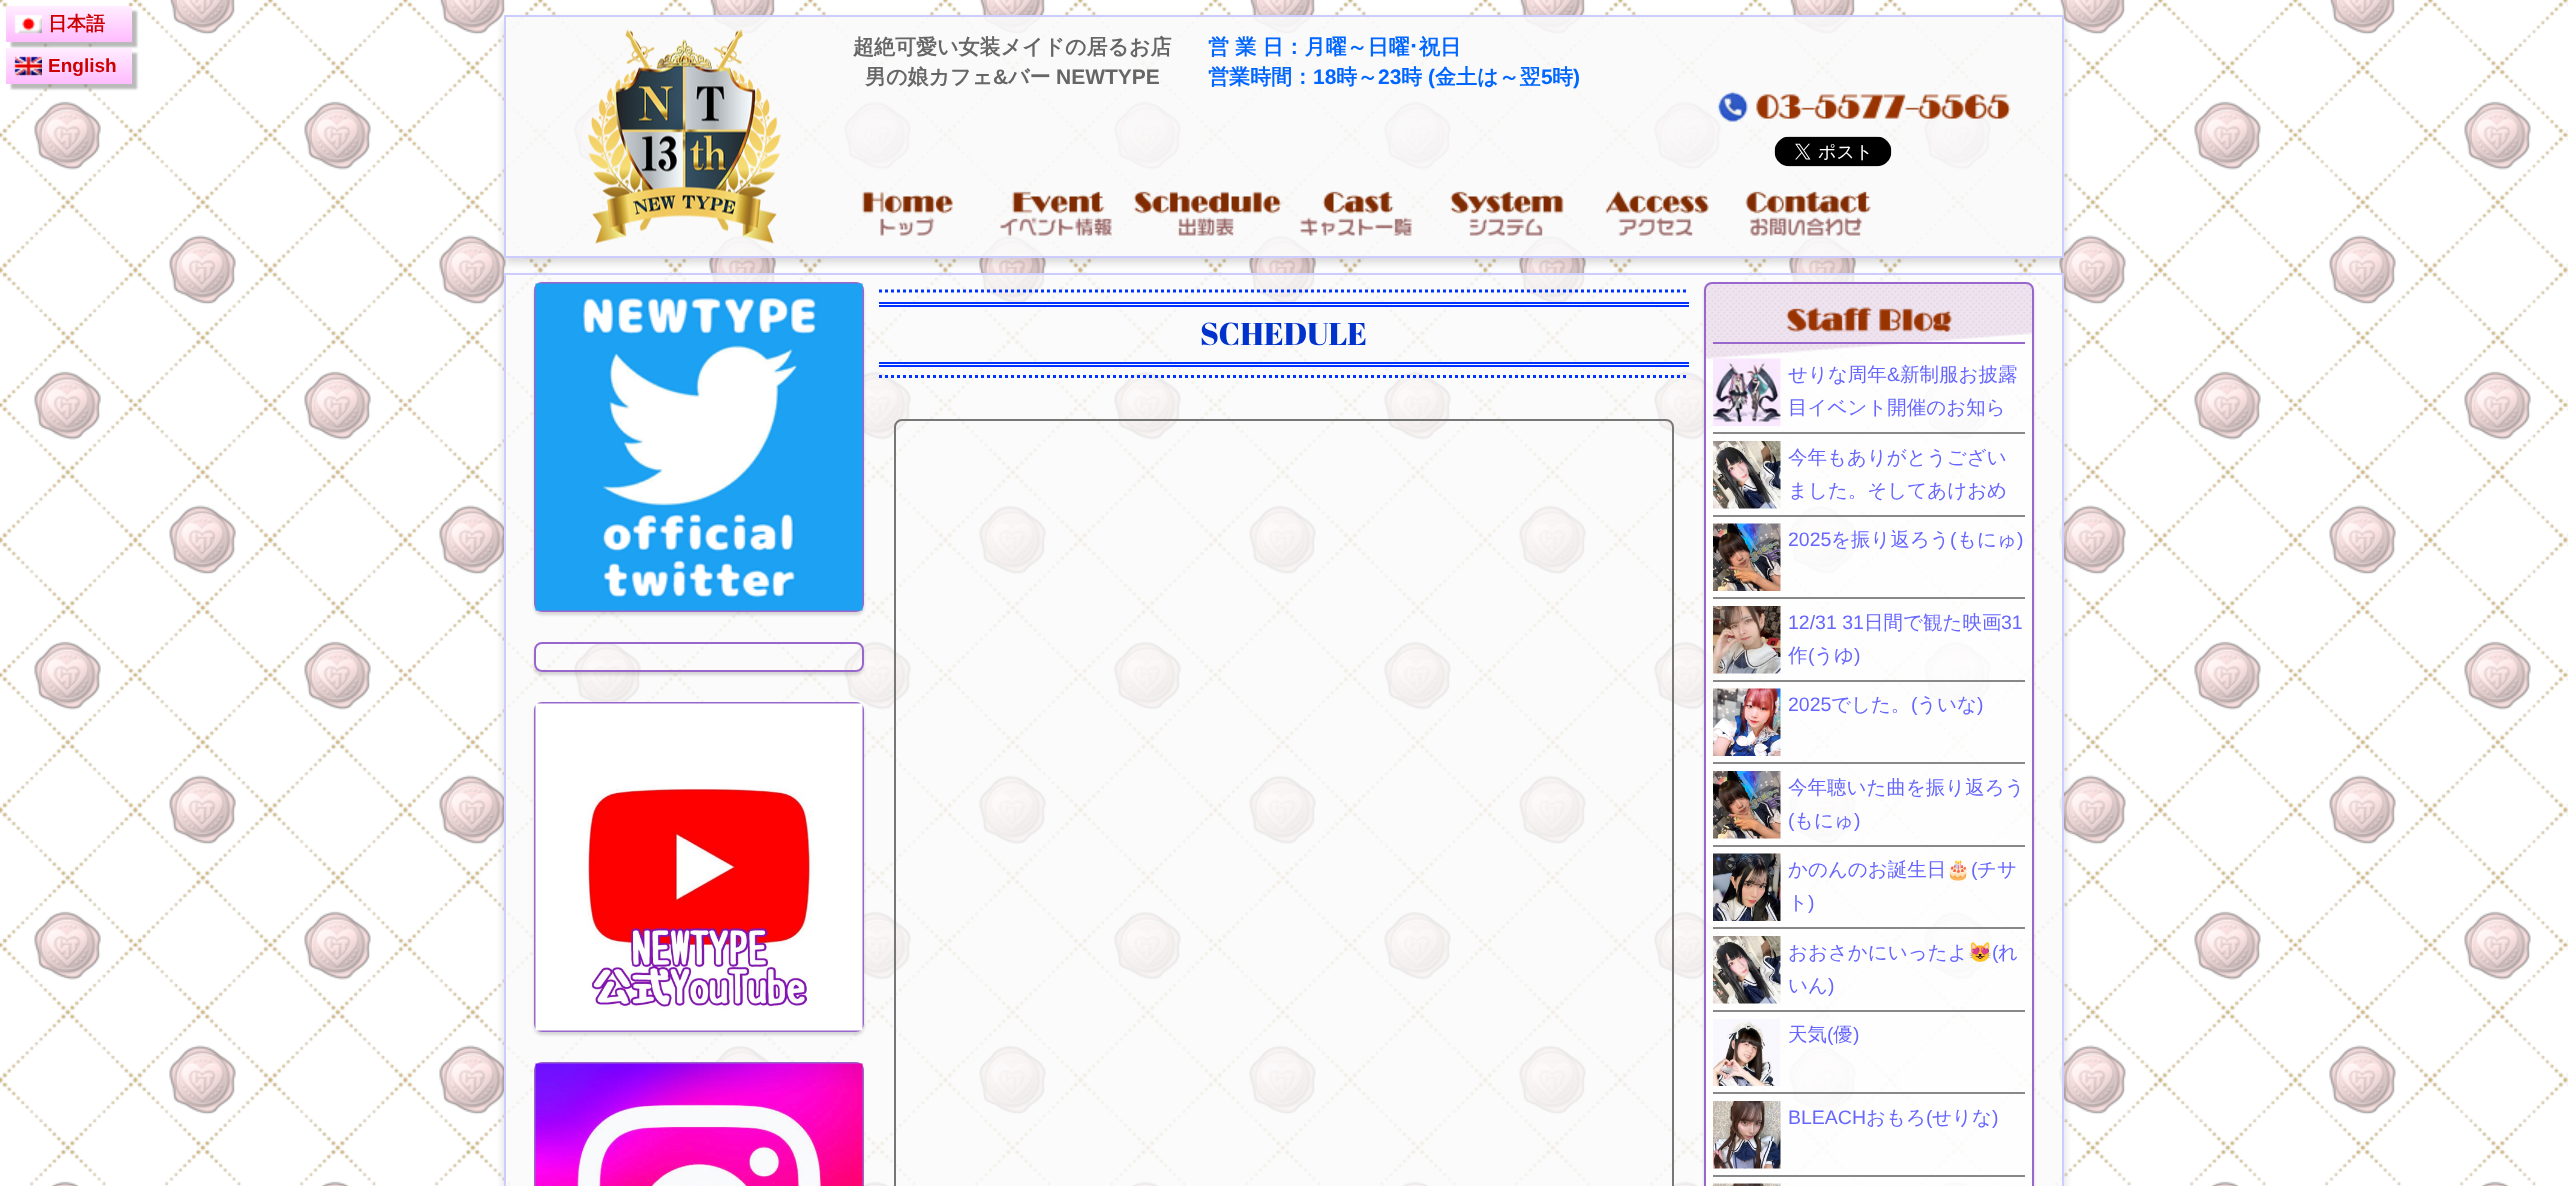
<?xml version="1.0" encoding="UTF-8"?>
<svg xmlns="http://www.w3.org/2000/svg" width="2568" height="1186">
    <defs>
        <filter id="blur1" x="-50%" y="-200%" width="200%" height="500%"><feGaussianBlur stdDeviation="1"/></filter>
        <linearGradient id="g1" gradientUnits="userSpaceOnUse" x1="69" y1="42" x2="69" y2="6"><stop offset="0" stop-color="#FFBBFF"/><stop offset="1" stop-color="#FFEEFF"/></linearGradient>
        <linearGradient id="g2" gradientUnits="userSpaceOnUse" x1="69" y1="84" x2="69" y2="48"><stop offset="0" stop-color="#FFBBFF"/><stop offset="1" stop-color="#FFEEFF"/></linearGradient>
        <clipPath id="clip1"><path d="M 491 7 H 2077 V 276 H 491 Z M 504 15 H 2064 V 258 H 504 Z" clip-rule="evenodd"/></clipPath>
        <filter id="blur2" x="-50%" y="-200%" width="200%" height="500%"><feGaussianBlur stdDeviation="4"/></filter>
        <clipPath id="clip2"><path d="M 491 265 H 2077 V 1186 H 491 Z M 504 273 H 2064 V 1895 H 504 Z" clip-rule="evenodd"/></clipPath>
        <clipPath id="clip3"><path d="M 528 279 H 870 V 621 H 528 Z M 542 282 H 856 C 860.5 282 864 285.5 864 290 V 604 C 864 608.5 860.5 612 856 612 H 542 C 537.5 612 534 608.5 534 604 V 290 C 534 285.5 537.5 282 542 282 Z" clip-rule="evenodd"/></clipPath>
        <filter id="blur3" x="-50%" y="-200%" width="200%" height="500%"><feGaussianBlur stdDeviation="1.5"/></filter>
        <clipPath id="clip4"><path d="M 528 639 H 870 V 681 H 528 Z M 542 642 H 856 C 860.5 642 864 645.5 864 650 V 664 C 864 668.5 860.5 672 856 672 H 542 C 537.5 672 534 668.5 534 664 V 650 C 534 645.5 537.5 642 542 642 Z" clip-rule="evenodd"/></clipPath>
        <clipPath id="clip5"><path d="M 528 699 H 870 V 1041 H 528 Z M 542 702 H 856 C 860.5 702 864 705.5 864 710 V 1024 C 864 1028.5 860.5 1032 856 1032 H 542 C 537.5 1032 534 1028.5 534 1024 V 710 C 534 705.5 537.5 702 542 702 Z" clip-rule="evenodd"/></clipPath>
        <clipPath id="clip6"><path d="M 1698 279 H 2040 V 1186 H 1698 Z M 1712 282 H 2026 C 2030.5 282 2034 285.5 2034 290 V 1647 C 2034 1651.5 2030.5 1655 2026 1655 H 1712 C 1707.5 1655 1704 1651.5 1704 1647 V 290 C 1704 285.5 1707.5 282 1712 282 Z" clip-rule="evenodd"/></clipPath>
    </defs>
    <rect width="100%" height="100%" fill="#FFFFFF"/>
    <image x="0" y="0" width="2568" height="1186" href="img_01.png"/>
    <rect x="11" y="11" width="126" height="36" fill="#646464" fill-opacity="0.45" filter="url(#blur1)"/>
    <rect x="6" y="6" width="126" height="36" fill="url(#g1)"/>
    <image x="14" y="15" width="28" height="19" href="img_02.png"/>
    <text x="48" y="30" font-family="WenQuanYi Zen Hei" font-size="19" font-weight="700" fill="#CC0000">日本語</text>
    <rect x="11" y="53" width="126" height="36" fill="#646464" fill-opacity="0.45" filter="url(#blur1)"/>
    <rect x="6" y="48" width="126" height="36" fill="url(#g2)"/>
    <image x="14" y="56" width="28" height="20" href="img_03.png"/>
    <text x="48" y="72" font-family="Liberation Sans" font-size="19" font-weight="700" fill="#CC0000">English</text>
    <g clip-path="url(#clip1)">
        <rect x="504" y="20" width="1560" height="243" fill="#000000" fill-opacity="0.15" filter="url(#blur2)"/>
    </g>
    <rect x="505" y="16" width="1558" height="241" fill="#FAFAFA" fill-opacity="0.9" stroke="#CCCCFF" stroke-width="2"/>
    <image x="588" y="29" width="193" height="215" href="img_04.png"/>
    <text x="853" y="54" font-family="WenQuanYi Zen Hei" font-size="21" font-weight="700" fill="#666666">超絶可愛い女装メイドの居るお店</text>
    <text x="865" y="84" font-family="WenQuanYi Zen Hei" font-size="21" font-weight="700" fill="#666666">男の娘カフェ</text>
    <text x="993" y="84" font-family="Liberation Sans" font-size="21" font-weight="700" fill="#666666">&amp;</text>
    <text x="1008" y="84" font-family="WenQuanYi Zen Hei" font-size="21" font-weight="700" fill="#666666">バー</text>
    <text x="1056" y="84" font-family="Liberation Sans" font-size="21" font-weight="700" fill="#666666">NEWTYPE</text>
    <text x="1208" y="54" font-family="WenQuanYi Zen Hei" font-size="21" font-weight="700" fill="#0066FF">営 業 日：月曜～日曜</text>
    <text x="1408" y="54" font-family="IPAPGothic" font-size="21" font-weight="700" fill="#0066FF">･</text>
    <text x="1419" y="54" font-family="WenQuanYi Zen Hei" font-size="21" font-weight="700" fill="#0066FF">祝日</text>
    <text x="1208" y="84" font-family="WenQuanYi Zen Hei" font-size="21" font-weight="700" fill="#0066FF">営業時間：</text>
    <text x="1313" y="84" font-family="Liberation Sans" font-size="21" font-weight="700" fill="#0066FF">18</text>
    <text x="1336" y="84" font-family="WenQuanYi Zen Hei" font-size="21" font-weight="700" fill="#0066FF">時～</text>
    <text x="1378" y="84" font-family="Liberation Sans" font-size="21" font-weight="700" fill="#0066FF">23</text>
    <text x="1401" y="84" font-family="WenQuanYi Zen Hei" font-size="21" font-weight="700" fill="#0066FF">時</text>
    <text x="1428" y="84" font-family="Liberation Sans" font-size="21" font-weight="700" fill="#0066FF">(</text>
    <text x="1435" y="84" font-family="WenQuanYi Zen Hei" font-size="21" font-weight="700" fill="#0066FF">金土は～翌</text>
    <text x="1541" y="84" font-family="Liberation Sans" font-size="21" font-weight="700" fill="#0066FF">5</text>
    <text x="1552" y="84" font-family="WenQuanYi Zen Hei" font-size="21" font-weight="700" fill="#0066FF">時</text>
    <text x="1573" y="84" font-family="Liberation Sans" font-size="21" font-weight="700" fill="#0066FF">)</text>
    <image x="1717" y="91" width="294" height="31" href="img_05.png"/>
    <image x="1774" y="136" width="118" height="31" href="img_06.png"/>
    <image x="862" y="191" width="91" height="45" href="img_07.png"/>
    <image x="1000" y="191" width="112" height="45" href="img_08.png"/>
    <image x="1133" y="191" width="149" height="45" href="img_09.png"/>
    <image x="1300" y="191" width="112" height="45" href="img_10.png"/>
    <image x="1450" y="191" width="114" height="45" href="img_11.png"/>
    <image x="1605" y="190" width="104" height="46" href="img_12.png"/>
    <image x="1745" y="191" width="126" height="45" href="img_13.png"/>
    <g clip-path="url(#clip2)">
        <rect x="504" y="278" width="1560" height="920" fill="#000000" fill-opacity="0.15" filter="url(#blur2)"/>
    </g>
    <rect x="505" y="274" width="1558" height="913" fill="#FAFAFA" fill-opacity="0.8" stroke="#CCCCFF" stroke-width="2"/>
    <g clip-path="url(#clip3)">
        <rect x="534" y="285" width="330" height="330" rx="8" fill="#000000" fill-opacity="0.15" filter="url(#blur3)"/>
    </g>
    <rect x="535" y="283" width="328" height="328" rx="7" fill="none" stroke="#9966CC" stroke-width="2"/>
    <image x="535" y="283" width="328" height="328" href="img_14.png"/>
    <g clip-path="url(#clip4)">
        <rect x="534" y="645" width="330" height="30" rx="8" fill="#000000" fill-opacity="0.15" filter="url(#blur3)"/>
    </g>
    <rect x="535" y="643" width="328" height="28" rx="7" fill="none" stroke="#9966CC" stroke-width="2"/>
    <g clip-path="url(#clip5)">
        <rect x="534" y="705" width="330" height="330" rx="8" fill="#000000" fill-opacity="0.15" filter="url(#blur3)"/>
    </g>
    <rect x="535" y="703" width="328" height="328" rx="7" fill="none" stroke="#9966CC" stroke-width="2"/>
    <image x="535" y="703" width="328" height="328" href="img_15.png"/>
    <rect x="535" y="1063" width="328" height="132" rx="7" fill="none" stroke="#9966CC" stroke-width="2"/>
    <image x="535" y="1063" width="328" height="123" href="img_16.png"/>
    <path d="M 879 291 H 1689" fill="none" stroke="#0033FF" stroke-width="3" stroke-dasharray="3 3"/>
    <rect x="879" y="302" width="810" height="2" fill="#0033FF"/>
    <rect x="879" y="305" width="810" height="2" fill="#0033FF"/>
    <text x="1200" y="345" font-family="Abril Fatface" font-size="31.5" fill="#0033CC">SCHEDULE</text>
    <rect x="879" y="362" width="810" height="2" fill="#0033FF"/>
    <rect x="879" y="365" width="810" height="2" fill="#0033FF"/>
    <path d="M 879 376.5 H 1689" fill="none" stroke="#0033FF" stroke-width="3" stroke-dasharray="3 3"/>
    <rect x="895" y="420" width="778" height="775" rx="7" fill="none" stroke="#777777" stroke-width="2"/>
    <g clip-path="url(#clip6)">
        <rect x="1704" y="285" width="330" height="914" rx="8" fill="#000000" fill-opacity="0.15" filter="url(#blur3)"/>
    </g>
    <rect x="1704" y="282" width="330" height="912" rx="8" fill="#FFFFFF" fill-opacity="0.7"/>
    <image x="1705" y="283" width="329" height="76" href="img_17.png"/>
    <rect x="1705" y="283" width="328" height="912" rx="7" fill="none" stroke="#9966CC" stroke-width="2"/>
    <image x="1786" y="307" width="166" height="25" href="img_18.png"/>
    <rect x="1713" y="342" width="312" height="2" fill="#9966CC"/>
    <rect x="1713" y="432" width="312" height="2" fill="#888888"/>
    <image x="1713" y="358" width="68" height="68" href="img_19.png"/>
    <text x="1788" y="381" font-family="WenQuanYi Zen Hei" font-size="19.5" font-weight="500" fill="#6666FF">せりな周年</text>
    <text x="1887" y="381" font-family="Liberation Sans" font-size="19.5" fill="#6666FF">&amp;</text>
    <text x="1900" y="381" font-family="WenQuanYi Zen Hei" font-size="19.5" font-weight="500" fill="#6666FF">新制服お披露</text>
    <text x="1788" y="414" font-family="WenQuanYi Zen Hei" font-size="19.5" font-weight="500" fill="#6666FF">目イベント開催のお知ら</text>
    <rect x="1713" y="515" width="312" height="2" fill="#888888"/>
    <image x="1713" y="441" width="68" height="68" href="img_20.png"/>
    <text font-family="WenQuanYi Zen Hei" font-size="19.5" font-weight="500" fill="#6666FF">
        <tspan x="1788" y="464">今年もありがとうござい</tspan>
        <tspan x="1788" y="497">ました。そしてあけおめ</tspan>
    </text>
    <rect x="1713" y="597" width="312" height="2" fill="#888888"/>
    <image x="1713" y="523" width="68" height="68" href="img_21.png"/>
    <text x="1788" y="546" font-family="Liberation Sans" font-size="19.5" fill="#6666FF">2025</text>
    <text x="1831" y="546" font-family="WenQuanYi Zen Hei" font-size="19.5" font-weight="500" fill="#6666FF">を振り返ろう</text>
    <text x="1950" y="546" font-family="Liberation Sans" font-size="19.5" fill="#6666FF">(</text>
    <text x="1957" y="546" font-family="WenQuanYi Zen Hei" font-size="19.5" font-weight="500" fill="#6666FF">もにゅ</text>
    <text x="2017" y="546" font-family="Liberation Sans" font-size="19.5" fill="#6666FF">)</text>
    <rect x="1713" y="680" width="312" height="2" fill="#888888"/>
    <image x="1713" y="606" width="68" height="68" href="img_22.png"/>
    <text x="1788" y="629" font-family="Liberation Sans" font-size="19.5" fill="#6666FF">12/31 31</text>
    <text x="1864" y="629" font-family="WenQuanYi Zen Hei" font-size="19.5" font-weight="500" fill="#6666FF">日間で観た映画</text>
    <text x="2001" y="629" font-family="Liberation Sans" font-size="19.5" fill="#6666FF">31</text>
    <text x="1788" y="662" font-family="WenQuanYi Zen Hei" font-size="19.5" font-weight="500" fill="#6666FF">作</text>
    <text x="1808" y="662" font-family="Liberation Sans" font-size="19.5" fill="#6666FF">(</text>
    <text x="1814" y="662" font-family="WenQuanYi Zen Hei" font-size="19.5" font-weight="500" fill="#6666FF">うゆ</text>
    <text x="1854" y="662" font-family="Liberation Sans" font-size="19.5" fill="#6666FF">)</text>
    <rect x="1713" y="762" width="312" height="2" fill="#888888"/>
    <image x="1713" y="688" width="68" height="68" href="img_23.png"/>
    <text x="1788" y="711" font-family="Liberation Sans" font-size="19.5" fill="#6666FF">2025</text>
    <text x="1831" y="711" font-family="WenQuanYi Zen Hei" font-size="19.5" font-weight="500" fill="#6666FF">でした。</text>
    <text x="1911" y="711" font-family="Liberation Sans" font-size="19.5" fill="#6666FF">(</text>
    <text x="1917" y="711" font-family="WenQuanYi Zen Hei" font-size="19.5" font-weight="500" fill="#6666FF">ういな</text>
    <text x="1977" y="711" font-family="Liberation Sans" font-size="19.5" fill="#6666FF">)</text>
    <rect x="1713" y="845" width="312" height="2" fill="#888888"/>
    <image x="1713" y="771" width="68" height="68" href="img_24.png"/>
    <text x="1788" y="794" font-family="WenQuanYi Zen Hei" font-size="19.5" font-weight="500" fill="#6666FF">今年聴いた曲を振り返ろう</text>
    <text x="1788" y="827" font-family="Liberation Sans" font-size="19.5" fill="#6666FF">(</text>
    <text x="1794" y="827" font-family="WenQuanYi Zen Hei" font-size="19.5" font-weight="500" fill="#6666FF">もにゅ</text>
    <text x="1854" y="827" font-family="Liberation Sans" font-size="19.5" fill="#6666FF">)</text>
    <rect x="1713" y="927" width="312" height="2" fill="#888888"/>
    <image x="1713" y="853" width="68" height="68" href="img_25.png"/>
    <text x="1788" y="876" font-family="WenQuanYi Zen Hei" font-size="19.5" font-weight="500" fill="#6666FF">かのんのお誕生日</text>
    <text x="1946" y="876" font-family="Noto Color Emoji" font-size="19.5" fill="#6666FF">🎂</text>
    <text x="1971" y="876" font-family="Liberation Sans" font-size="19.5" fill="#6666FF">(</text>
    <text x="1977" y="876" font-family="WenQuanYi Zen Hei" font-size="19.5" font-weight="500" fill="#6666FF">チサ</text>
    <text x="1788" y="909" font-family="WenQuanYi Zen Hei" font-size="19.5" font-weight="500" fill="#6666FF">ト</text>
    <text x="1808" y="909" font-family="Liberation Sans" font-size="19.5" fill="#6666FF">)</text>
    <rect x="1713" y="1010" width="312" height="2" fill="#888888"/>
    <image x="1713" y="936" width="68" height="68" href="img_26.png"/>
    <text x="1788" y="959" font-family="WenQuanYi Zen Hei" font-size="19.5" font-weight="500" fill="#6666FF">おおさかにいったよ</text>
    <text x="1968" y="959" font-family="Noto Color Emoji" font-size="19.5" fill="#6666FF">😻</text>
    <text x="1992" y="959" font-family="Liberation Sans" font-size="19.5" fill="#6666FF">(</text>
    <text x="1998" y="959" font-family="WenQuanYi Zen Hei" font-size="19.5" font-weight="500" fill="#6666FF">れ</text>
    <text x="1788" y="992" font-family="WenQuanYi Zen Hei" font-size="19.5" font-weight="500" fill="#6666FF">いん</text>
    <text x="1828" y="992" font-family="Liberation Sans" font-size="19.5" fill="#6666FF">)</text>
    <rect x="1713" y="1092" width="312" height="2" fill="#888888"/>
    <image x="1713" y="1019" width="67" height="67" href="img_27.png"/>
    <text x="1788" y="1041" font-family="WenQuanYi Zen Hei" font-size="19.5" font-weight="500" fill="#6666FF">天気</text>
    <text x="1827" y="1041" font-family="Liberation Sans" font-size="19.5" fill="#6666FF">(</text>
    <text x="1833" y="1041" font-family="WenQuanYi Zen Hei" font-size="19.5" font-weight="500" fill="#6666FF">優</text>
    <text x="1853" y="1041" font-family="Liberation Sans" font-size="19.5" fill="#6666FF">)</text>
    <rect x="1713" y="1175" width="312" height="2" fill="#888888"/>
    <image x="1713" y="1101" width="68" height="68" href="img_28.png"/>
    <text x="1788" y="1124" font-family="Liberation Sans" font-size="19.5" fill="#6666FF">BLEACH</text>
    <text x="1866" y="1124" font-family="WenQuanYi Zen Hei" font-size="19.5" font-weight="500" fill="#6666FF">おもろ</text>
    <text x="1926" y="1124" font-family="Liberation Sans" font-size="19.5" fill="#6666FF">(</text>
    <text x="1932" y="1124" font-family="WenQuanYi Zen Hei" font-size="19.5" font-weight="500" fill="#6666FF">せりな</text>
    <text x="1992" y="1124" font-family="Liberation Sans" font-size="19.5" fill="#6666FF">)</text>
    <image x="1713" y="1183" width="68" height="3" href="img_29.png"/>
</svg>
